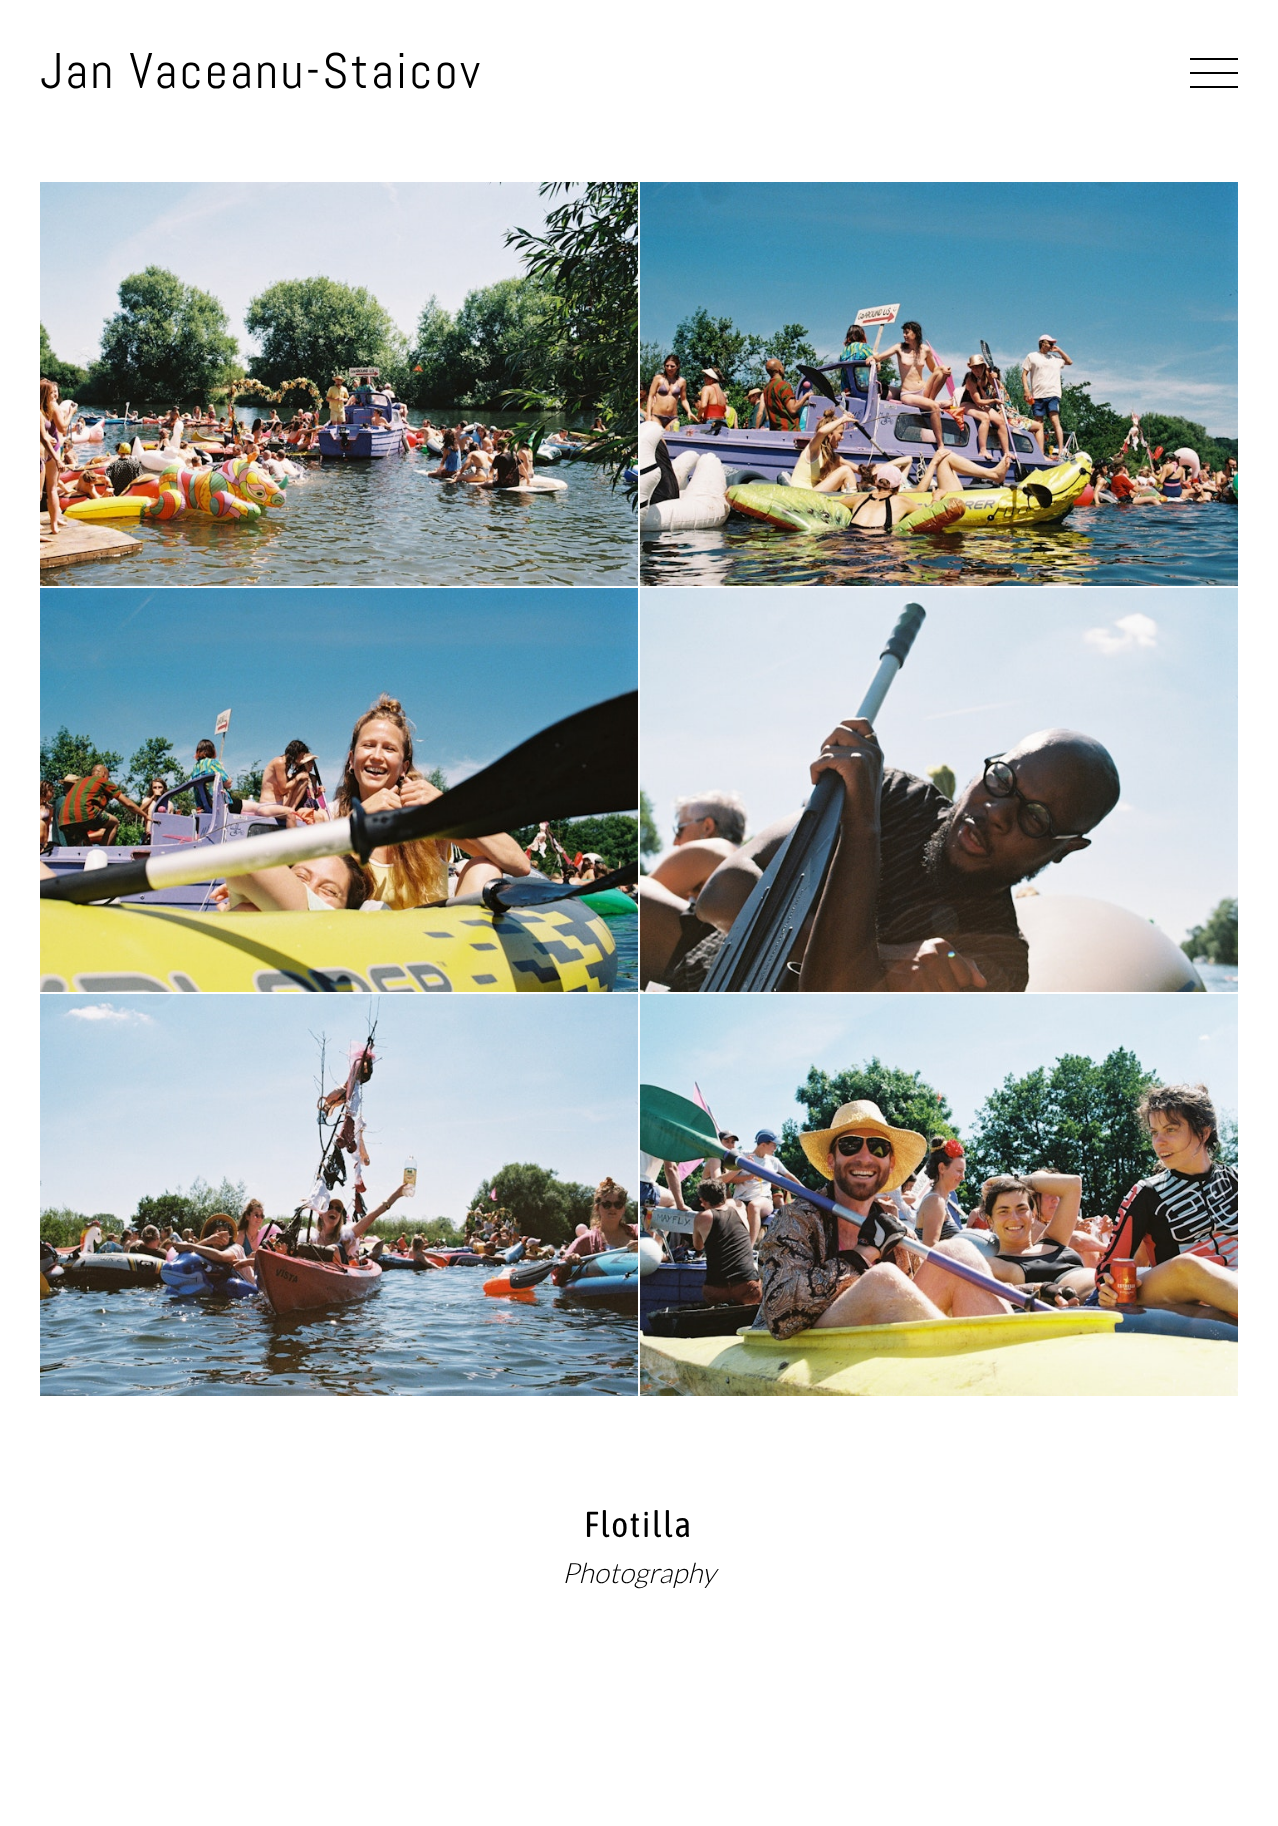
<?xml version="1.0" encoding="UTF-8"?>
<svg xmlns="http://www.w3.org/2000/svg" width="1278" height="1826">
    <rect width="100%" height="100%" fill="#FFFFFF"/>
    <text x="40" y="88" font-family="Abel" font-size="50" letter-spacing="2.5" fill="#000000">Jan Vaceanu-Staicov</text>
    <rect x="1190" y="58" width="48" height="2" fill="#000000"/>
    <rect x="1190" y="72" width="48" height="2" fill="#000000"/>
    <rect x="1190" y="86" width="48" height="2" fill="#000000"/>
    <image x="40" y="182" width="598" height="404" href="img_01.png"/>
    <image x="640" y="182" width="598" height="404" href="img_02.png"/>
    <image x="40" y="588" width="598" height="404" href="img_03.png"/>
    <image x="640" y="588" width="598" height="404" href="img_04.png"/>
    <image x="40" y="994" width="598" height="402" href="img_05.png"/>
    <image x="640" y="994" width="598" height="402" href="img_06.png"/>
    <text x="584" y="1537" font-family="Asap Condensed" font-size="36" letter-spacing="1.75" fill="#000000">Flotilla</text>
    <text x="562" y="1583" font-family="Lato" font-size="28" font-weight="300" font-style="italic" fill="#000000">Photography</text>
</svg>
